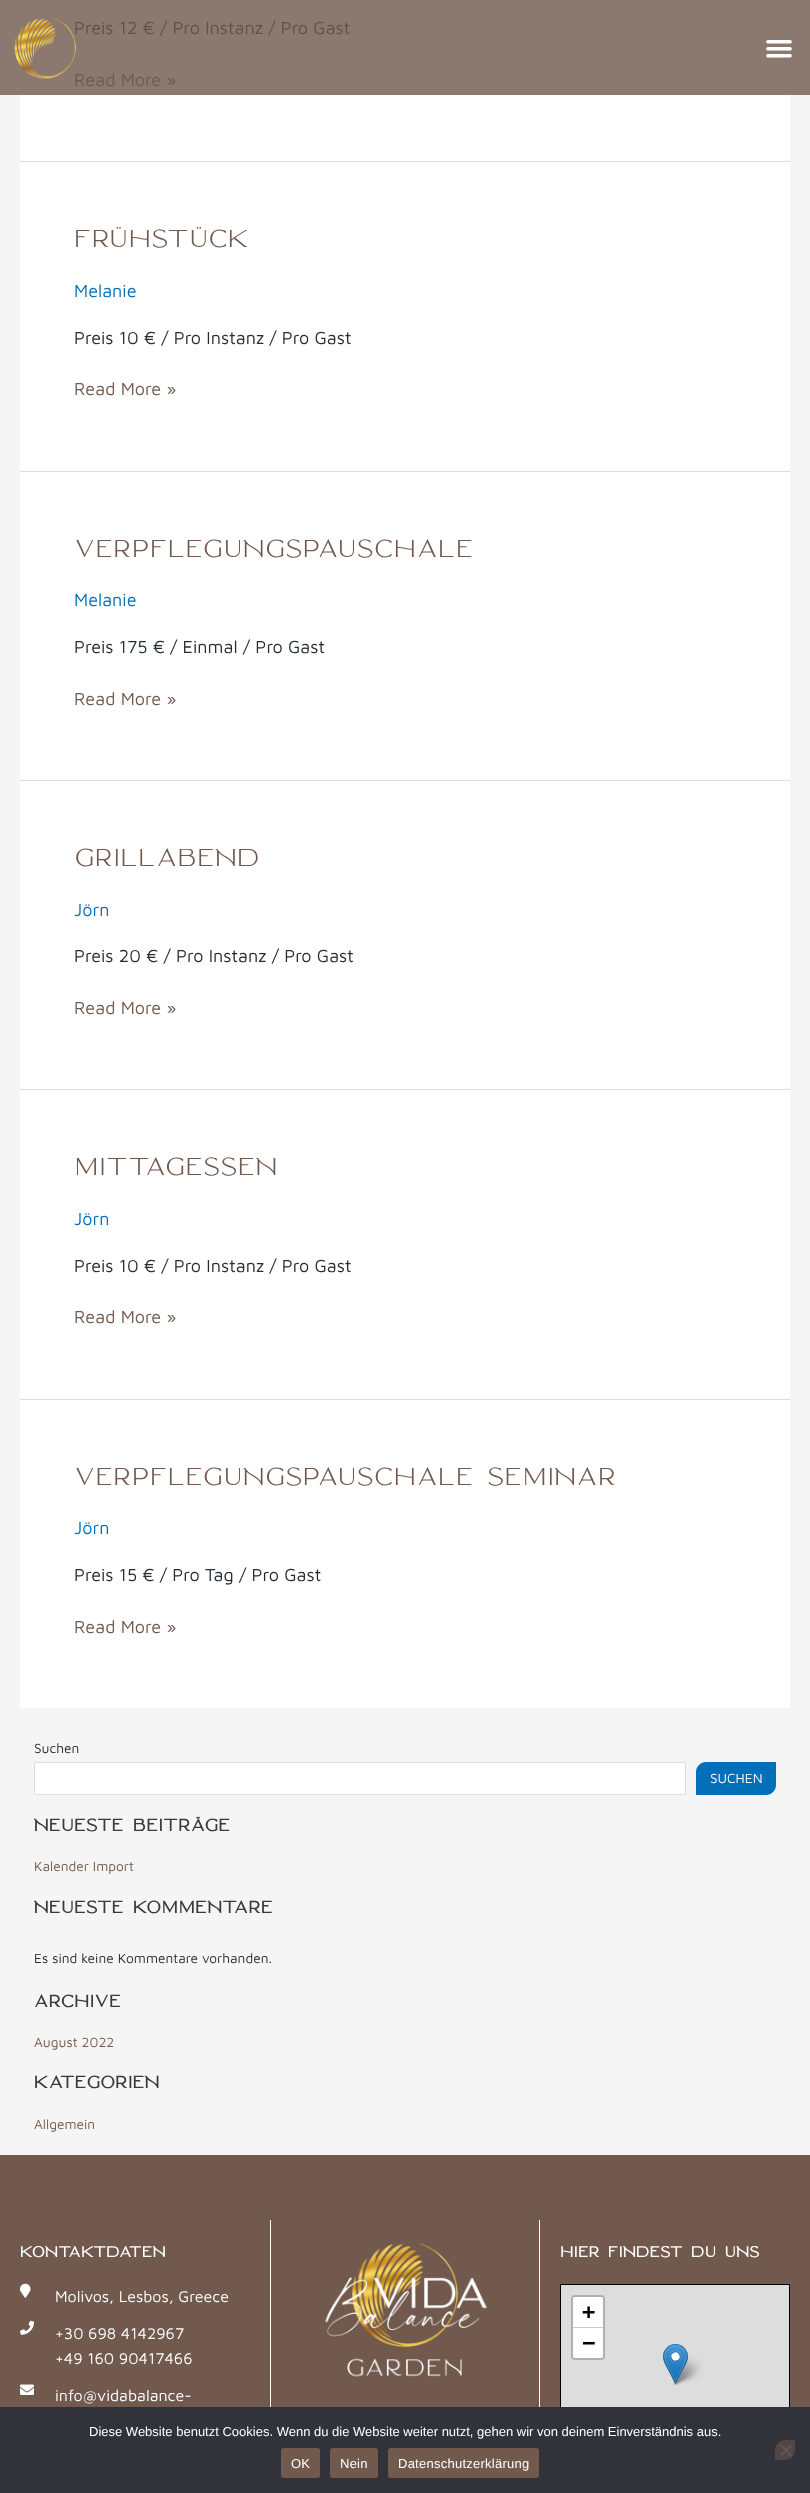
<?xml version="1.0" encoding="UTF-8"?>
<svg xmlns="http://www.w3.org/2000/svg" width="810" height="2493">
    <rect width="100%" height="100%" fill="#F5F5F5"/>
    <rect x="0" y="0" width="810" height="95" fill="#8B796F"/>
    <text x="74" y="34" font-family="Maven Pro" font-size="18" fill="#625148">Preis 12 € / Pro Instanz / Pro Gast</text>
    <text x="74" y="86" font-family="Maven Pro" font-size="18" fill="#715A4D">Read More »</text>
    <image x="14" y="18" width="62" height="61" href="img_01.png"/>
    <image x="766" y="40" width="26" height="18" href="img_02.png"/>
    <rect x="20" y="95" width="770" height="66" fill="#FFFFFF"/>
    <rect x="20" y="161" width="770" height="1" fill="#DDDDDD"/>
    <rect x="20" y="162" width="770" height="309" fill="#FFFFFF"/>
    <rect x="20" y="471" width="770" height="1" fill="#DDDDDD"/>
    <text x="74" y="247" font-family="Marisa" font-size="34.25" fill="#715A4D">FRÜHSTÜCK</text>
    <text x="74" y="297" font-family="Maven Pro" font-size="18" fill="#0170B9">Melanie</text>
    <text x="74" y="344" font-family="Maven Pro" font-size="18" fill="#242D33">Preis 10 € / Pro Instanz / Pro Gast</text>
    <text x="74" y="395" font-family="Maven Pro" font-size="18" fill="#715A4D">Read More »</text>
    <rect x="20" y="472" width="770" height="308" fill="#FFFFFF"/>
    <rect x="20" y="780" width="770" height="1" fill="#DDDDDD"/>
    <text x="74" y="557" font-family="Marisa" font-size="34.25" fill="#715A4D">VERPFLEGUNGSPAUSCHALE</text>
    <text x="74" y="606" font-family="Maven Pro" font-size="18" fill="#0170B9">Melanie</text>
    <text x="74" y="653" font-family="Maven Pro" font-size="18" fill="#242D33">Preis 175 € / Einmal / Pro Gast</text>
    <text x="74" y="705" font-family="Maven Pro" font-size="18" fill="#715A4D">Read More »</text>
    <rect x="20" y="781" width="770" height="308" fill="#FFFFFF"/>
    <rect x="20" y="1089" width="770" height="1" fill="#DDDDDD"/>
    <text x="74" y="866" font-family="Marisa" font-size="34.25" fill="#715A4D">GRILLABEND</text>
    <text x="74" y="916" font-family="Maven Pro" font-size="18" fill="#0170B9">Jörn</text>
    <text x="74" y="962" font-family="Maven Pro" font-size="18" fill="#242D33">Preis 20 € / Pro Instanz / Pro Gast</text>
    <text x="74" y="1014" font-family="Maven Pro" font-size="18" fill="#715A4D">Read More »</text>
    <rect x="20" y="1090" width="770" height="309" fill="#FFFFFF"/>
    <rect x="20" y="1399" width="770" height="1" fill="#DDDDDD"/>
    <text x="74" y="1175" font-family="Marisa" font-size="34.25" fill="#715A4D">MITTAGESSEN</text>
    <text x="74" y="1225" font-family="Maven Pro" font-size="18" fill="#0170B9">Jörn</text>
    <text x="74" y="1272" font-family="Maven Pro" font-size="18" fill="#242D33">Preis 10 € / Pro Instanz / Pro Gast</text>
    <text x="74" y="1323" font-family="Maven Pro" font-size="18" fill="#715A4D">Read More »</text>
    <rect x="20" y="1400" width="770" height="308" fill="#FFFFFF"/>
    <text x="74" y="1485" font-family="Marisa" font-size="34.25" fill="#715A4D">VERPFLEGUNGSPAUSCHALE SEMINAR</text>
    <text x="74" y="1534" font-family="Maven Pro" font-size="18" fill="#0170B9">Jörn</text>
    <text x="74" y="1581" font-family="Maven Pro" font-size="18" fill="#242D33">Preis 15 € / Pro Tag / Pro Gast</text>
    <text x="74" y="1633" font-family="Maven Pro" font-size="18" fill="#715A4D">Read More »</text>
    <text x="34" y="1753" font-family="Maven Pro" font-size="13.7" fill="#242D33">Suchen</text>
    <rect x="34.5" y="1762.5" width="651" height="32" rx="1.5" fill="#FFFFFF" stroke="#DDDDDD"/>
    <path d="M 706 1762 H 776 V 1785 C 776 1790.5 771.5 1795 766 1795 H 696 V 1772 C 696 1766.5 700.5 1762 706 1762 Z" fill="#0170B9"/>
    <text x="710" y="1783" font-family="Maven Pro" font-size="13.7" fill="#FFFFFF">SUCHEN</text>
    <text x="34" y="1831" font-family="Marisa" font-size="23.25" font-weight="700" fill="#3A3A3A">NEUESTE BEITRÄGE</text>
    <text x="34" y="1871" font-family="Maven Pro" font-size="13.7" fill="#715A4D">Kalender Import</text>
    <text x="34" y="1913" font-family="Marisa" font-size="23.25" font-weight="700" fill="#3A3A3A">NEUESTE KOMMENTARE</text>
    <text x="34" y="1963" font-family="Maven Pro" font-size="13.7" fill="#242D33">Es sind keine Kommentare vorhanden.</text>
    <text x="34" y="2007" font-family="Marisa" font-size="23.25" font-weight="700" fill="#3A3A3A">ARCHIVE</text>
    <text x="34" y="2047" font-family="Maven Pro" font-size="13.7" fill="#715A4D">August 2022</text>
    <text x="34" y="2088" font-family="Marisa" font-size="23.25" font-weight="700" fill="#3A3A3A">KATEGORIEN</text>
    <text x="34" y="2129" font-family="Maven Pro" font-size="13.7" fill="#715A4D">Allgemein</text>
    <rect x="0" y="2155" width="810" height="252" fill="#715A4D"/>
    <text x="20" y="2257" font-family="Marisa" font-size="20.5" font-weight="700" fill="#FFFFFF">KONTAKTDATEN</text>
    <image x="20" y="2283" width="11" height="15" href="img_03.png"/>
    <text x="55" y="2302" font-family="Maven Pro" font-size="16" fill="#FFFFFF">Molivos, Lesbos, Greece</text>
    <image x="20" y="2320" width="14" height="15" href="img_04.png"/>
    <text font-family="Maven Pro" font-size="16" fill="#FFFFFF">
        <tspan x="55" y="2339">+30 698 4142967</tspan>
        <tspan x="55" y="2364">+49 160 90417466</tspan>
    </text>
    <image x="20" y="2384" width="14" height="11" href="img_05.png"/>
    <text x="55" y="2401" font-family="Maven Pro" font-size="16" fill="#FFFFFF">info@vidabalance-</text>
    <rect x="539" y="2220" width="1" height="187" fill="#FFFFFF"/>
    <rect x="270" y="2220" width="1" height="187" fill="#FFFFFF"/>
    <image x="325" y="2243" width="162" height="134" href="img_06.png"/>
    <text x="560" y="2257" font-family="Marisa" font-size="20.5" font-weight="700" fill="#FFFFFF">HIER FINDEST DU UNS</text>
    <rect x="560.5" y="2284.5" width="229" height="199" fill="none" stroke="#000000"/>
    <image x="561" y="2285" width="228" height="122" href="img_07.png"/>
    <rect x="0" y="2407" width="810" height="86" fill="#32323A"/>
    <text x="89" y="2436" font-family="Liberation Sans" font-size="13" fill="#FFFFFF">Diese Website benutzt Cookies. Wenn du die Website weiter nutzt, gehen wir von deinem Einverständnis aus.</text>
    <path d="M 785 2440 H 795 V 2450 C 795 2455.5 790.5 2460 785 2460 H 775 V 2450 C 775 2444.5 779.5 2440 785 2440 Z" fill="#524644"/>
    <path d="M 790.5 2444.5 L 792 2446 L 781.5 2456.5 L 780 2455 Z" fill="#59595D"/>
    <path d="M 780 2446 L 781.5 2444.5 L 792 2455 L 790.5 2456.5 Z" fill="#59595D"/>
    <rect x="281" y="2448" width="39" height="30" rx="3" fill="#715A4D"/>
    <text x="291" y="2468" font-family="Liberation Sans" font-size="13" letter-spacing="0.25" fill="#FFFFFF">OK</text>
    <rect x="330" y="2448" width="48" height="30" rx="3" fill="#715A4D"/>
    <text x="340" y="2468" font-family="Liberation Sans" font-size="13" letter-spacing="0.25" fill="#FFFFFF">Nein</text>
    <rect x="388" y="2448" width="151" height="30" rx="3" fill="#715A4D"/>
    <text x="398" y="2468" font-family="Liberation Sans" font-size="13" letter-spacing="0.25" fill="#FFFFFF">Datenschutzerklärung</text>
</svg>
